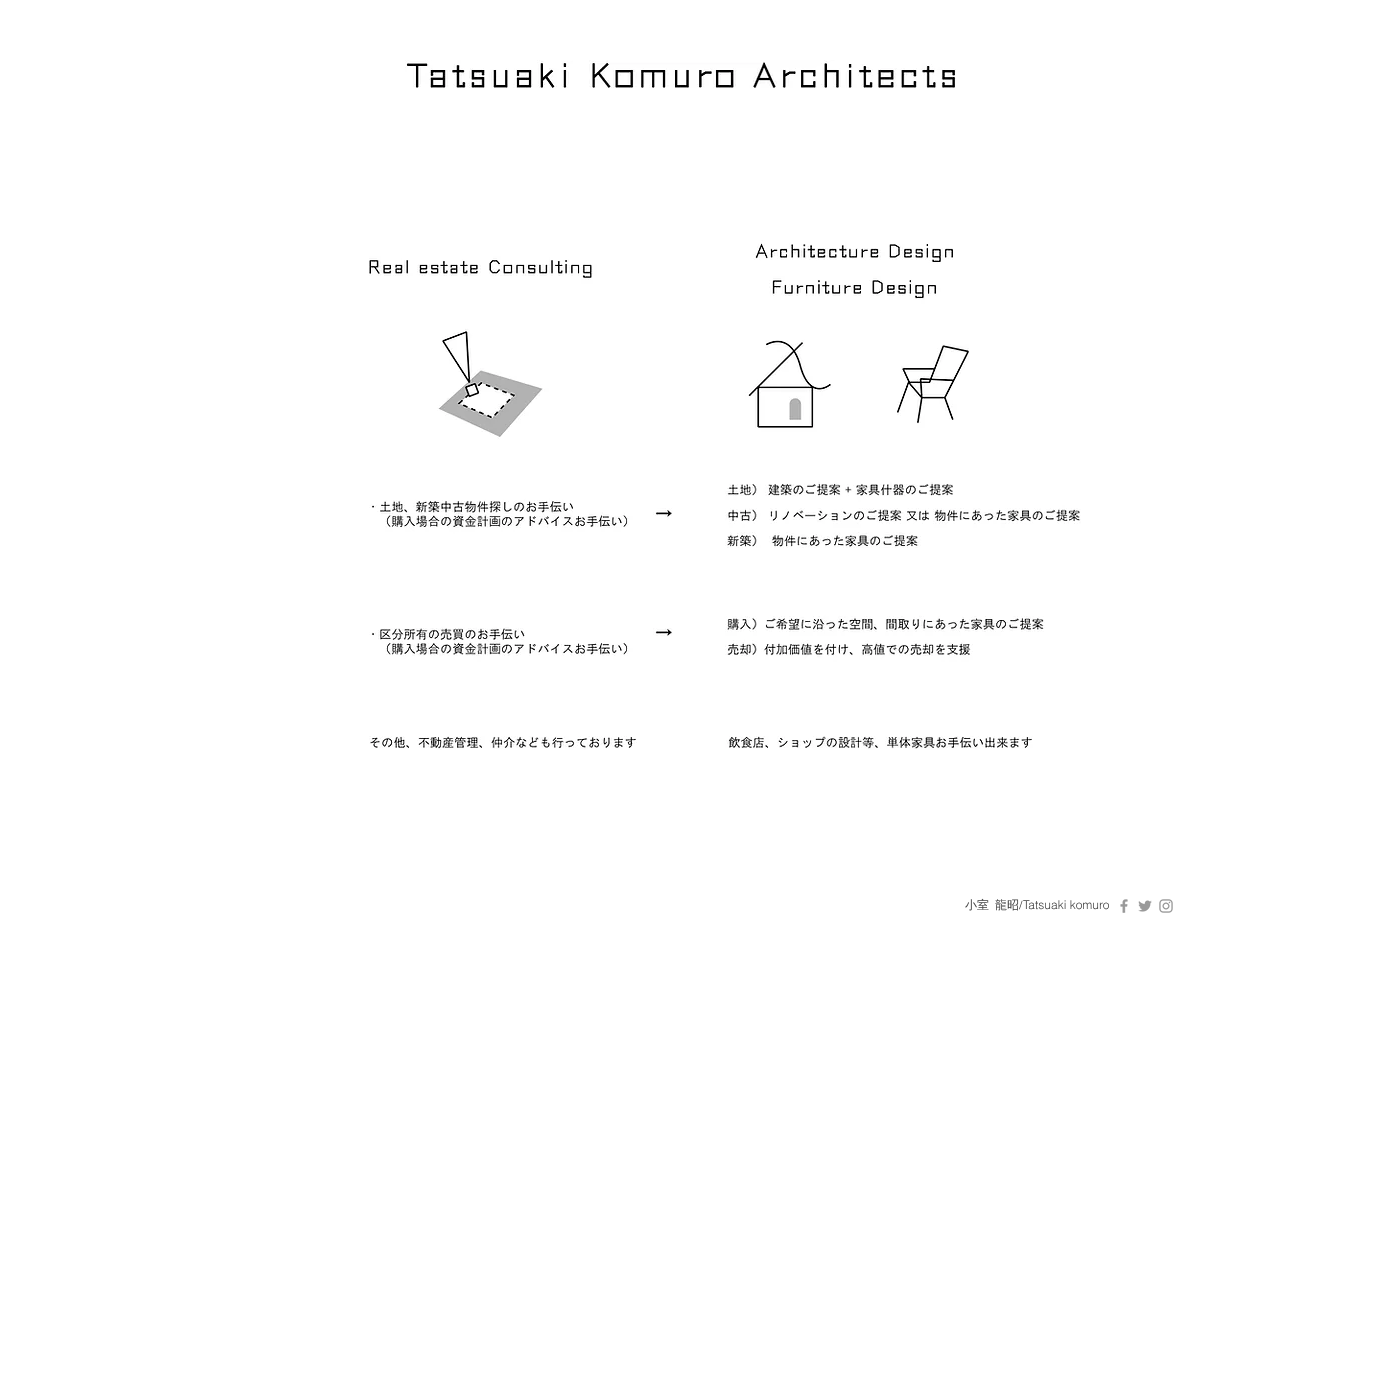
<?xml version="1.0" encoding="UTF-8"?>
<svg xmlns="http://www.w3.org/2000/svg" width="1390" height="1376">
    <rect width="100%" height="100%" fill="#FFFFFF"/>
    <image x="405" y="60" width="551" height="28" href="img_01.png"/>
    <image x="369" y="240" width="712" height="510" href="img_02.png"/>
    <text x="965" y="909" font-family="WenQuanYi Zen Hei" font-size="12" font-weight="500" fill="#414141">小室</text>
    <text x="995" y="909" font-family="WenQuanYi Zen Hei" font-size="12" font-weight="500" fill="#414141">龍昭</text>
    <text x="1019" y="909" font-family="'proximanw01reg'" font-size="12" fill="#414141">/</text>
    <text x="1023" y="909" font-family="helvetica" font-size="12" font-weight="300" fill="#414141">Tatsuaki komuro</text>
    <image x="1120" y="899" width="8" height="14" href="img_03.png"/>
    <image x="1138" y="900" width="14" height="12" href="img_04.png"/>
    <image x="1159" y="899" width="14" height="14" href="img_05.png"/>
</svg>
